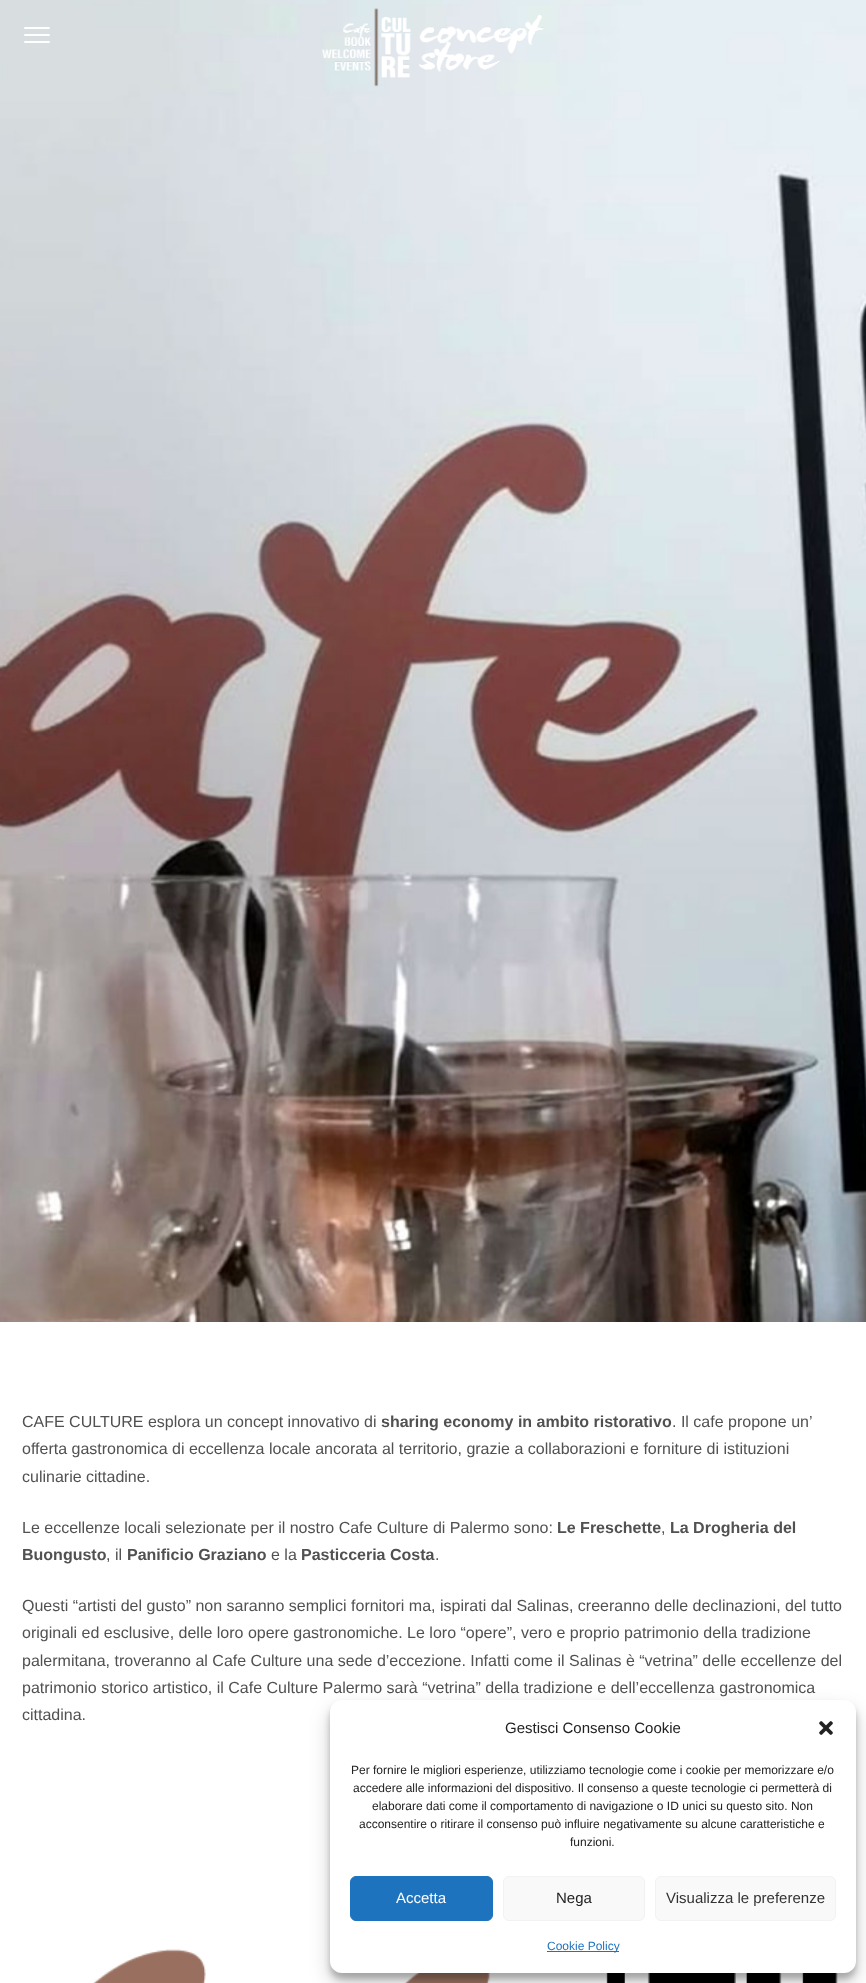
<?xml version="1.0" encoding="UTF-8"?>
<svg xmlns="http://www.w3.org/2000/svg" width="866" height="1983">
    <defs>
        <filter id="blur1" x="-50%" y="-200%" width="200%" height="500%"><feGaussianBlur stdDeviation="3"/></filter>
        <filter id="blur2" x="-50%" y="-200%" width="200%" height="500%"><feGaussianBlur stdDeviation="10"/></filter>
    </defs>
    <rect width="100%" height="100%" fill="#FFFFFF"/>
    <image x="0" y="0" width="866" height="1322" href="img_01.png"/>
    <rect x="24" y="34" width="26" height="2" rx="1" fill="#FFFFFF"/>
    <rect x="24" y="27" width="26" height="2" rx="1" fill="#FFFFFF"/>
    <rect x="24" y="41" width="26" height="2" rx="1" fill="#FFFFFF"/>
    <image x="322" y="8" width="222" height="79" href="img_02.png"/>
    <text x="22" y="1427" font-family="Liberation Sans" font-size="16" fill="#515151">CAFE CULTURE esplora un concept innovativo di</text>
    <text x="381" y="1427" font-family="Liberation Sans" font-size="16" font-weight="700" fill="#515151">sharing economy in ambito ristorativo</text>
    <text x="672" y="1427" font-family="Liberation Sans" font-size="16" fill="#515151">. Il cafe propone un’</text>
    <text font-family="Liberation Sans" font-size="16" fill="#515151">
        <tspan x="22" y="1454">offerta gastronomica di eccellenza locale ancorata al territorio, grazie a collaborazioni e forniture di istituzioni</tspan>
        <tspan x="22" y="1482">culinarie cittadine.</tspan>
    </text>
    <text x="22" y="1533" font-family="Liberation Sans" font-size="16" fill="#515151">Le eccellenze locali selezionate per il nostro Cafe Culture di Palermo sono:</text>
    <text x="557" y="1533" font-family="Liberation Sans" font-size="16" font-weight="700" fill="#515151">Le Freschette</text>
    <text x="661" y="1533" font-family="Liberation Sans" font-size="16" fill="#515151">,</text>
    <text x="670" y="1533" font-family="Liberation Sans" font-size="16" font-weight="700" fill="#515151">La Drogheria del</text>
    <text x="22" y="1560" font-family="Liberation Sans" font-size="16" font-weight="700" fill="#515151">Buongusto</text>
    <text x="106" y="1560" font-family="Liberation Sans" font-size="16" fill="#515151">, il</text>
    <text x="127" y="1560" font-family="Liberation Sans" font-size="16" font-weight="700" fill="#515151">Panificio Graziano</text>
    <text x="271" y="1560" font-family="Liberation Sans" font-size="16" fill="#515151">e la</text>
    <text x="301" y="1560" font-family="Liberation Sans" font-size="16" font-weight="700" fill="#515151">Pasticceria Costa</text>
    <text x="435" y="1560" font-family="Liberation Sans" font-size="16" fill="#515151">.</text>
    <text font-family="Liberation Sans" font-size="16" fill="#515151">
        <tspan x="22" y="1611">Questi “artisti del gusto” non saranno semplici fornitori ma, ispirati dal Salinas, creeranno delle declinazioni, del tutto</tspan>
        <tspan x="22" y="1638">originali ed esclusive, delle loro opere gastronomiche. Le loro “opere”, vero e proprio patrimonio della tradizione</tspan>
        <tspan x="22" y="1666">palermitana, troveranno al Cafe Culture una sede d’eccezione. Infatti come il Salinas è “vetrina” delle eccellenze del</tspan>
        <tspan x="22" y="1693">patrimonio storico artistico, il Cafe Culture Palermo sarà “vetrina” della tradizione e dell’eccellenza gastronomica</tspan>
        <tspan x="22" y="1720">cittadina.</tspan>
    </text>
    <image x="93" y="1949" width="745" height="34" href="img_03.png"/>
    <rect x="330" y="1706" width="526" height="273" rx="12" fill="#000000" fill-opacity="0.23" filter="url(#blur1)"/>
    <rect x="330" y="1710" width="526" height="273" rx="12" fill="#000000" fill-opacity="0.19" filter="url(#blur2)"/>
    <rect x="330" y="1700" width="526" height="273" rx="12" fill="#FFFFFF"/>
    <text x="505" y="1733" font-family="Liberation Sans" font-size="15" fill="#222222">Gestisci Consenso Cookie</text>
    <image x="819" y="1721" width="14" height="14" href="img_04.png"/>
    <text x="351" y="1774" font-family="Liberation Sans" font-size="12" fill="#222222">Per fornire le migliori esperienze, utilizziamo tecnologie come i cookie per memorizzare e/o</text>
    <text x="353" y="1792" font-family="Liberation Sans" font-size="12" fill="#222222">accedere alle informazioni del dispositivo. Il consenso a queste tecnologie ci permetterà di</text>
    <text x="372" y="1810" font-family="Liberation Sans" font-size="12" fill="#222222">elaborare dati come il comportamento di navigazione o ID unici su questo sito. Non</text>
    <text x="359" y="1828" font-family="Liberation Sans" font-size="12" fill="#222222">acconsentire o ritirare il consenso può influire negativamente su alcune caratteristiche e</text>
    <text x="570" y="1846" font-family="Liberation Sans" font-size="12" fill="#222222">funzioni.</text>
    <rect x="350.5" y="1876.5" width="142" height="44" rx="5.5" fill="#1E73BE" stroke="#1E73BE"/>
    <text x="396" y="1903" font-family="Liberation Sans" font-size="15" fill="#FFFFFF">Accetta</text>
    <rect x="503.5" y="1876.5" width="141" height="44" rx="5.5" fill="#F9F9F9" stroke="#F2F2F2"/>
    <text x="556" y="1903" font-family="Liberation Sans" font-size="15" fill="#222222">Nega</text>
    <rect x="655.5" y="1876.5" width="180" height="44" rx="5.5" fill="#F9F9F9" stroke="#F2F2F2"/>
    <text x="666" y="1903" font-family="Liberation Sans" font-size="15" fill="#333333">Visualizza le preferenze</text>
    <rect x="547" y="1951" width="72" height="1" fill="#1E73BE"/>
    <text x="547" y="1950" font-family="Liberation Sans" font-size="12" fill="#1E73BE">Cookie Policy</text>
</svg>
